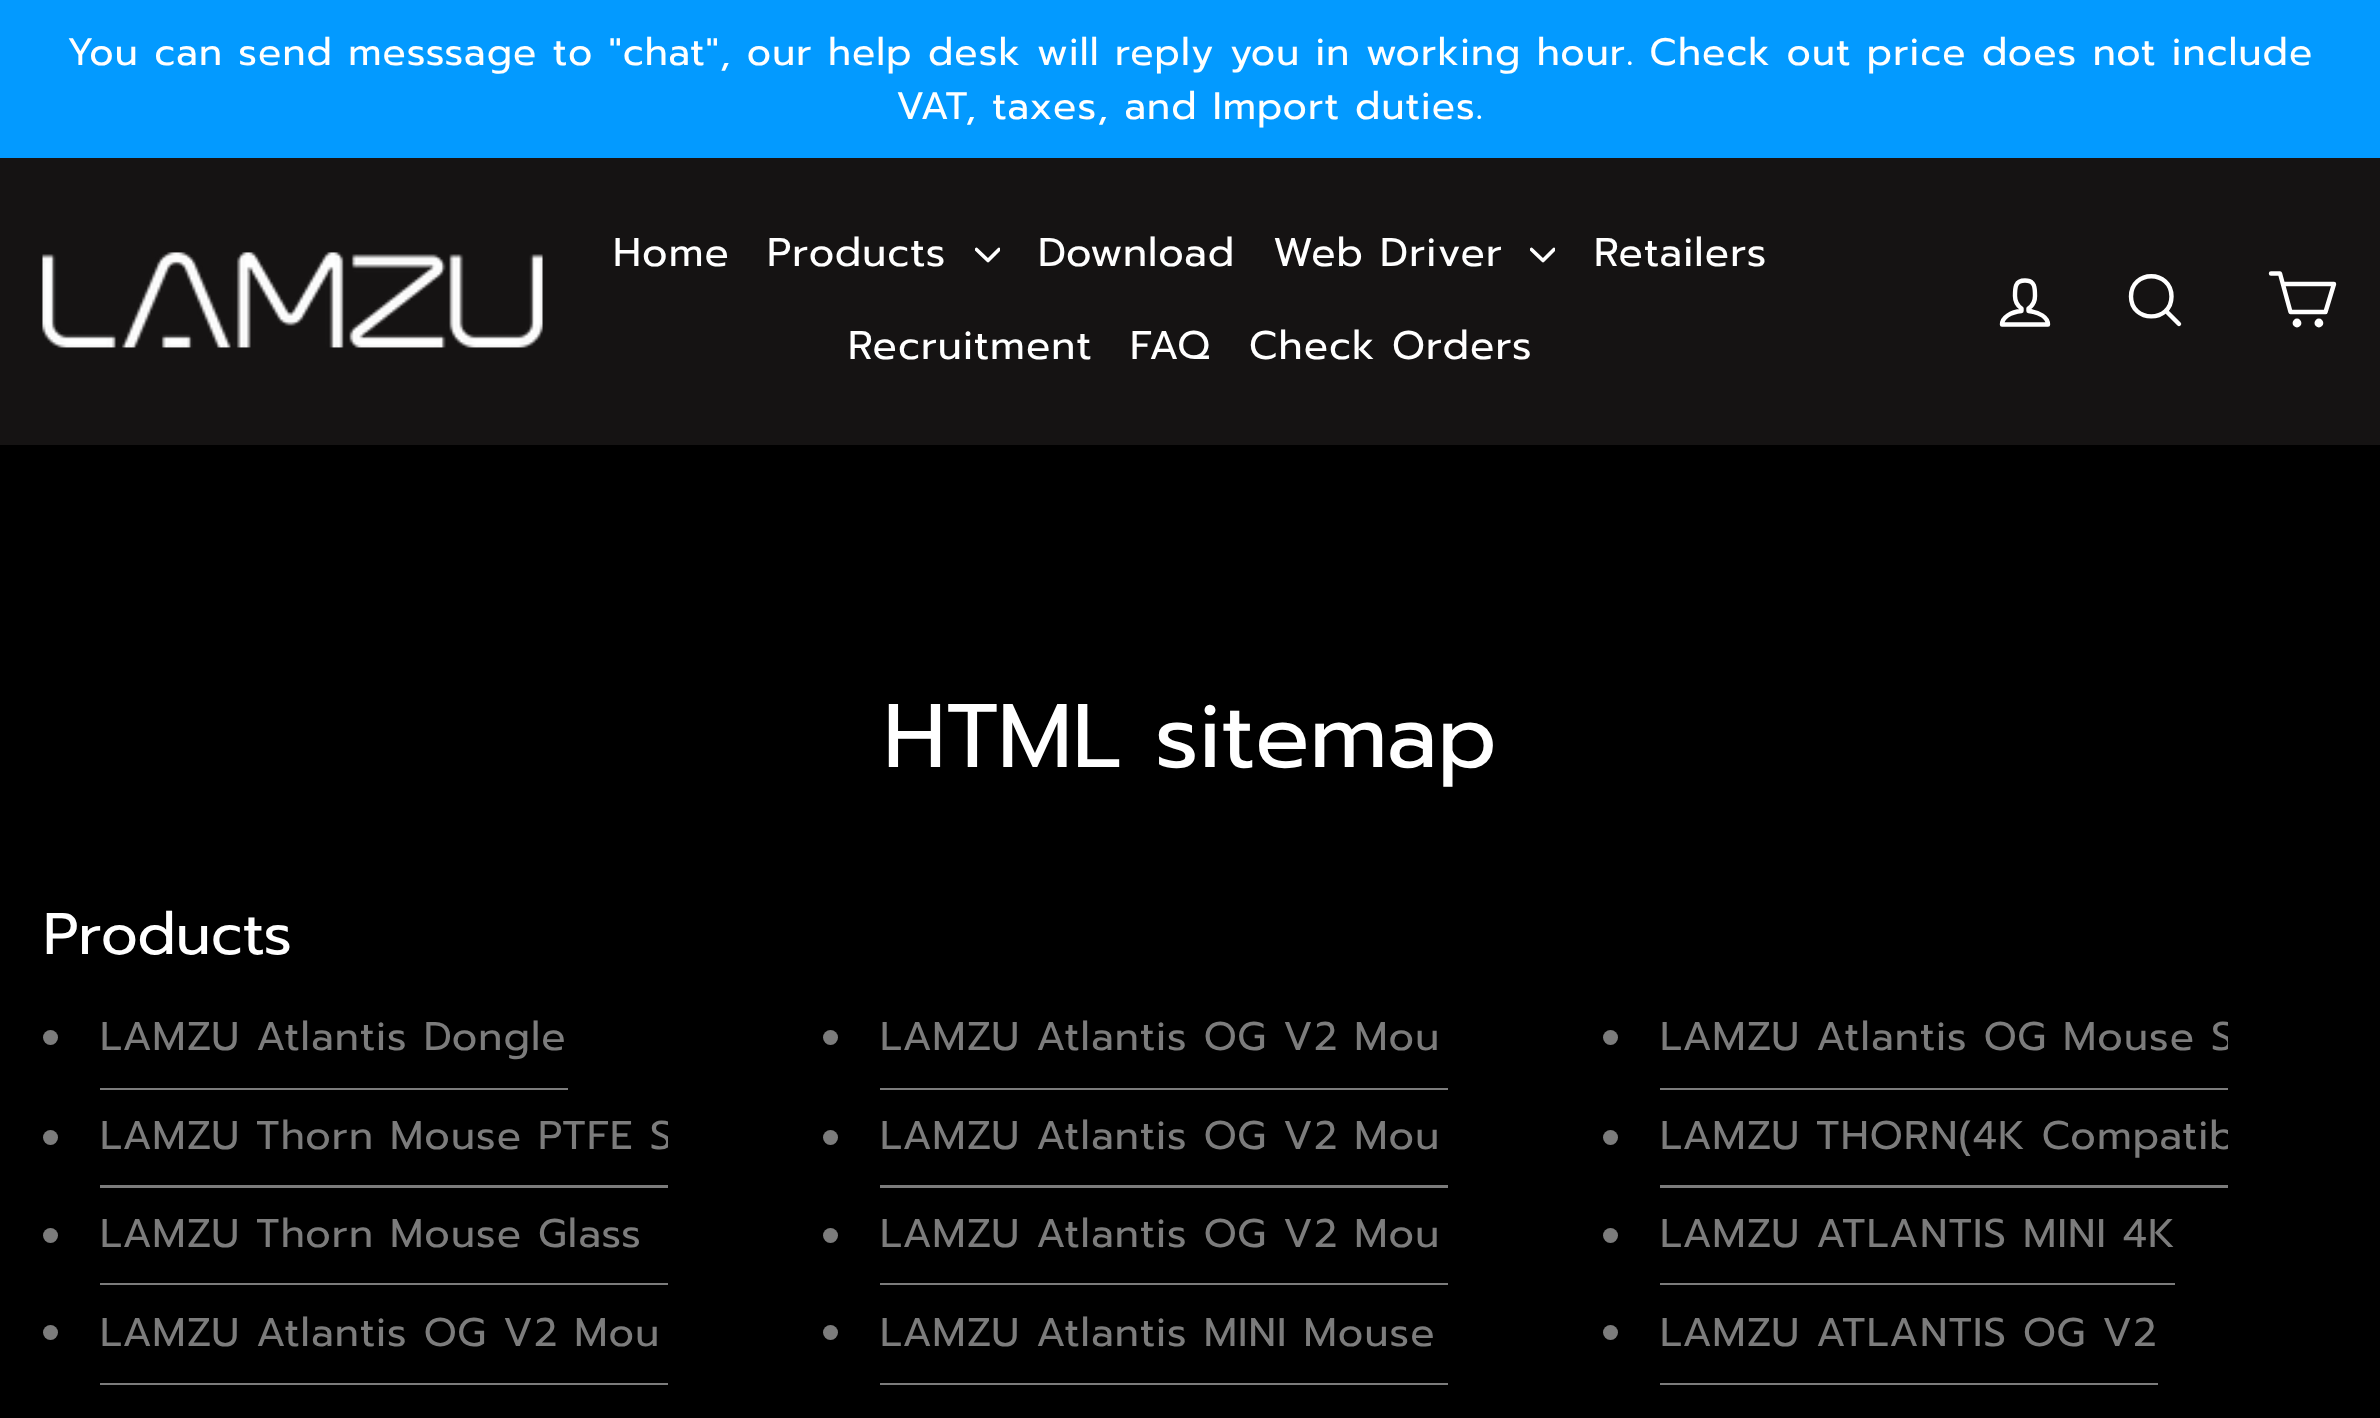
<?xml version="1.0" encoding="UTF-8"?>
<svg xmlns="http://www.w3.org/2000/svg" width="2380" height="1418">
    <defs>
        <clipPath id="clip1"><rect x="975" y="243" width="25" height="25"/></clipPath>
        <clipPath id="clip2"><rect x="1530" y="243" width="25" height="25"/></clipPath>
        <clipPath id="clip3"><rect x="1603" y="990" width="625" height="100"/></clipPath>
        <clipPath id="clip4"><rect x="43" y="1090" width="625" height="98"/></clipPath>
        <clipPath id="clip5"><rect x="1603" y="1090" width="625" height="98"/></clipPath>
    </defs>
    <rect width="100%" height="100%" fill="#000000"/>
    <rect x="0" y="0" width="2380" height="158" fill="#039AFF"/>
    <text x="67" y="65" font-family="Prompt" font-size="38.25" letter-spacing="1.12" fill="#FFFFFF">You can send messsage to "chat", our help desk will reply you in working hour. Check out price does not include</text>
    <text x="896" y="119" font-family="Prompt" font-size="38.25" letter-spacing="1.12" fill="#FFFFFF">VAT, taxes, and Import duties.</text>
    <rect x="0" y="158" width="2380" height="287" fill="#151313"/>
    <image x="42" y="252" width="501" height="96" href="img_01.png"/>
    <text x="613" y="266" font-family="Prompt" font-size="40" letter-spacing="1.12" fill="#FFFFFF">Home</text>
    <text x="767" y="266" font-family="Prompt" font-size="40" letter-spacing="1.12" fill="#FFFFFF">Products</text>
    <g clip-path="url(#clip1)">
        <path d="M 976.5 249.5 L 988 260.5 L 999 249.5" fill="none" stroke="#FFFFFF" stroke-width="3.6" stroke-linecap="round" stroke-linejoin="round"/>
    </g>
    <text x="1038" y="266" font-family="Prompt" font-size="40" letter-spacing="1.12" fill="#FFFFFF">Download</text>
    <text x="1273" y="266" font-family="Prompt" font-size="40" letter-spacing="1.12" fill="#FFFFFF">Web Driver</text>
    <g clip-path="url(#clip2)">
        <path d="M 1531.5 249.5 L 1543 260.5 L 1554 249.5" fill="none" stroke="#FFFFFF" stroke-width="3.6" stroke-linecap="round" stroke-linejoin="round"/>
    </g>
    <text x="1594" y="266" font-family="Prompt" font-size="40" letter-spacing="1.12" fill="#FFFFFF">Retailers</text>
    <text x="848" y="359" font-family="Prompt" font-size="40" letter-spacing="1.12" fill="#FFFFFF">Recruitment</text>
    <text x="1130" y="359" font-family="Prompt" font-size="40" letter-spacing="1.12" fill="#FFFFFF">FAQ</text>
    <text x="1249" y="359" font-family="Prompt" font-size="40" letter-spacing="1.12" fill="#FFFFFF">Check Orders</text>
    <path d="M 2028.5 311 V 308.5 C 2032 306 2035 301 2035 296 C 2035 287.5 2035 280.5 2025 280.5 C 2015 280.5 2015 287.5 2015 296 C 2015 301 2018 306 2021.5 308.5 V 311 C 2010.5 312 2002 317.5 2002 324.5 H 2048 C 2048 317.5 2039.5 312 2028.5 311 Z" fill="none" stroke="#FFFFFF" stroke-width="4.4" stroke-linecap="round" stroke-linejoin="round"/>
    <path d="M 2171.5 296.5 C 2171.5 323 2131 323 2131 296.5 C 2131 269.5 2171.5 269.5 2171.5 296.5 Z M 2179 324 L 2166 311" fill="none" stroke="#FFFFFF" stroke-width="4.4" stroke-linecap="round" stroke-linejoin="round"/>
    <path d="M 2283 284 H 2334 L 2325.5 312 H 2290.5 L 2280 273.5 H 2271" fill="none" stroke="#FFFFFF" stroke-width="4.4" stroke-linecap="round" stroke-linejoin="round"/>
    <circle cx="2297" cy="323" r="2.2" fill="none" stroke="#FFFFFF" stroke-width="4.4"/>
    <circle cx="2318.9" cy="323" r="2.2" fill="none" stroke="#FFFFFF" stroke-width="4.4"/>
    <text x="883" y="767" font-family="Prompt" font-size="90" fill="#FFFFFF">HTML sitemap</text>
    <text x="43" y="954" font-family="Prompt" font-size="58.5" fill="#FFFFFF">Products</text>
    <circle cx="50.5" cy="1037.5" r="7.5" fill="#7C7C7C"/>
    <rect x="100" y="1088" width="468" height="2" fill="#7C7C7C"/>
    <text x="100" y="1050" font-family="Prompt" font-size="40" letter-spacing="1.12" fill="#7C7C7C">LAMZU Atlantis Dongle</text>
    <circle cx="830.5" cy="1037.5" r="7.5" fill="#7C7C7C"/>
    <rect x="880" y="1088" width="568" height="2" fill="#7C7C7C"/>
    <text x="880" y="1050" font-family="Prompt" font-size="40" letter-spacing="1.12" fill="#7C7C7C">LAMZU Atlantis OG V2 Mou</text>
    <circle cx="1610.5" cy="1037.5" r="7.5" fill="#7C7C7C"/>
    <rect x="1660" y="1088" width="568" height="2" fill="#7C7C7C"/>
    <g clip-path="url(#clip3)">
        <text x="1660" y="1050" font-family="Prompt" font-size="40" letter-spacing="1.12" fill="#7C7C7C">LAMZU Atlantis OG Mouse S</text>
    </g>
    <circle cx="50.5" cy="1137.5" r="7.5" fill="#7C7C7C"/>
    <rect x="100" y="1185" width="568" height="3" fill="#7C7C7C"/>
    <g clip-path="url(#clip4)">
        <text x="100" y="1149" font-family="Prompt" font-size="40" letter-spacing="1.12" fill="#7C7C7C">LAMZU Thorn Mouse PTFE S</text>
    </g>
    <circle cx="830.5" cy="1137.5" r="7.5" fill="#7C7C7C"/>
    <rect x="880" y="1185" width="568" height="3" fill="#7C7C7C"/>
    <text x="880" y="1149" font-family="Prompt" font-size="40" letter-spacing="1.12" fill="#7C7C7C">LAMZU Atlantis OG V2 Mou</text>
    <circle cx="1610.5" cy="1137.5" r="7.5" fill="#7C7C7C"/>
    <rect x="1660" y="1185" width="568" height="3" fill="#7C7C7C"/>
    <g clip-path="url(#clip5)">
        <text x="1660" y="1149" font-family="Prompt" font-size="40" letter-spacing="1.12" fill="#7C7C7C">LAMZU THORN(4K Compatib</text>
    </g>
    <circle cx="50.5" cy="1235.5" r="7.5" fill="#7C7C7C"/>
    <rect x="100" y="1283" width="568" height="2" fill="#7C7C7C"/>
    <text x="100" y="1247" font-family="Prompt" font-size="40" letter-spacing="1.12" fill="#7C7C7C">LAMZU Thorn Mouse Glass</text>
    <circle cx="830.5" cy="1235.5" r="7.5" fill="#7C7C7C"/>
    <rect x="880" y="1283" width="568" height="2" fill="#7C7C7C"/>
    <text x="880" y="1247" font-family="Prompt" font-size="40" letter-spacing="1.12" fill="#7C7C7C">LAMZU Atlantis OG V2 Mou</text>
    <circle cx="1610.5" cy="1235.5" r="7.5" fill="#7C7C7C"/>
    <rect x="1660" y="1283" width="515" height="2" fill="#7C7C7C"/>
    <text x="1660" y="1247" font-family="Prompt" font-size="40" letter-spacing="1.12" fill="#7C7C7C">LAMZU ATLANTIS MINI 4K</text>
    <circle cx="50.5" cy="1332.5" r="7.5" fill="#7C7C7C"/>
    <rect x="100" y="1383" width="568" height="2" fill="#7C7C7C"/>
    <text x="100" y="1346" font-family="Prompt" font-size="40" letter-spacing="1.12" fill="#7C7C7C">LAMZU Atlantis OG V2 Mou</text>
    <circle cx="830.5" cy="1332.5" r="7.5" fill="#7C7C7C"/>
    <rect x="880" y="1383" width="568" height="2" fill="#7C7C7C"/>
    <text x="880" y="1346" font-family="Prompt" font-size="40" letter-spacing="1.12" fill="#7C7C7C">LAMZU Atlantis MINI Mouse</text>
    <circle cx="1610.5" cy="1332.5" r="7.5" fill="#7C7C7C"/>
    <rect x="1660" y="1383" width="498" height="2" fill="#7C7C7C"/>
    <text x="1660" y="1346" font-family="Prompt" font-size="40" letter-spacing="1.12" fill="#7C7C7C">LAMZU ATLANTIS OG V2</text>
</svg>
